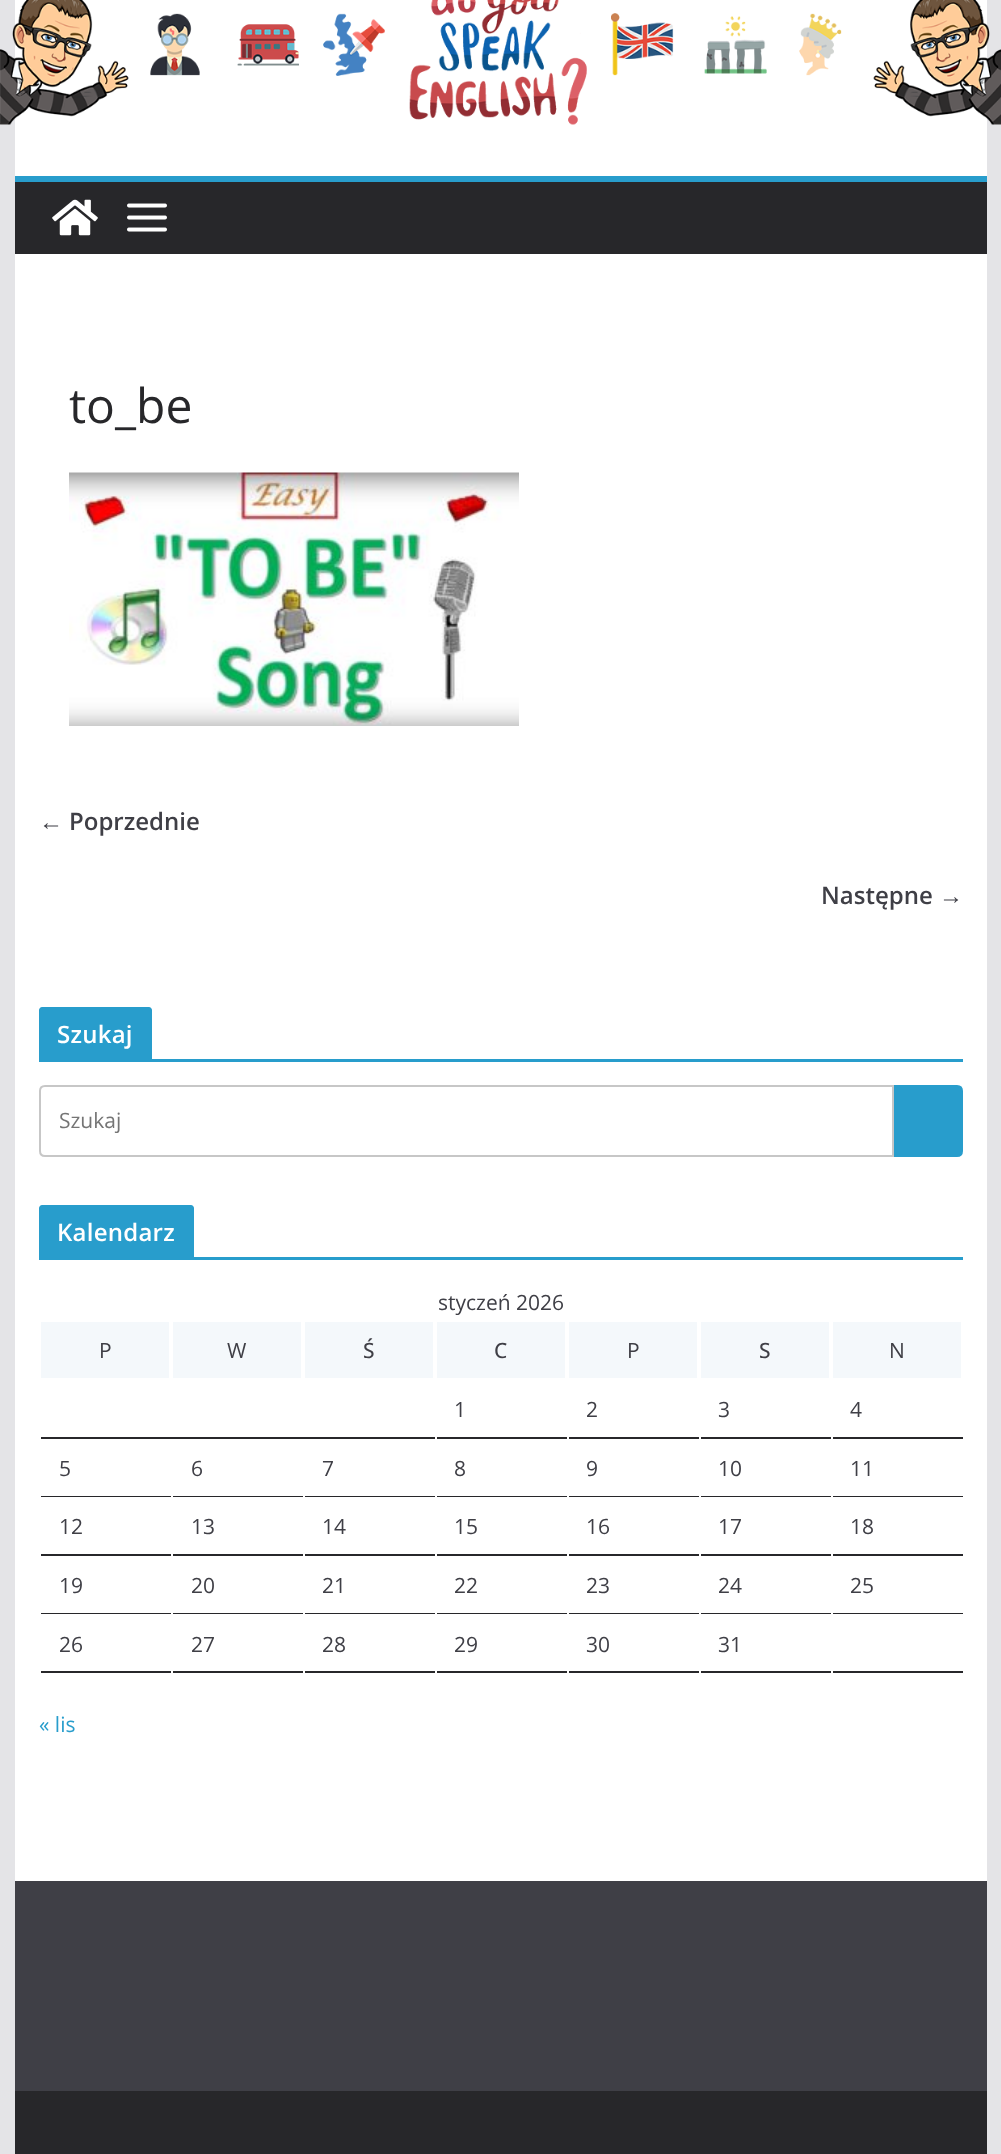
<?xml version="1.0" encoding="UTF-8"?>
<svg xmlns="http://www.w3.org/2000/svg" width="1001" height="2154">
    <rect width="100%" height="100%" fill="#E4E4E7"/>
    <rect x="15" y="0" width="972" height="176" fill="#FFFFFF"/>
    <image x="0" y="0" width="1001" height="125" href="img_01.png"/>
    <rect x="15" y="182" width="972" height="72" fill="#27272A"/>
    <rect x="15" y="176" width="972" height="6" fill="#289DCC"/>
    <image x="52" y="199" width="46" height="37" href="img_02.png"/>
    <image x="127" y="203" width="40" height="29" href="img_03.png"/>
    <rect x="15" y="254" width="972" height="1627" fill="#FFFFFF"/>
    <text x="69" y="423" font-family="Open Sans" font-size="48" fill="#27272A">to_be</text>
    <image x="69" y="472" width="450" height="254" href="img_04.png"/>
    <text x="39" y="830" font-family="Liberation Serif" font-size="24" font-weight="700" fill="#3F3F46">←</text>
    <text x="69" y="830" font-family="Open Sans" font-size="24" font-weight="600" fill="#3F3F46">Poprzednie</text>
    <text x="821" y="904" font-family="Open Sans" font-size="24" font-weight="600" fill="#3F3F46">Następne</text>
    <text x="939" y="904" font-family="Liberation Serif" font-size="24" font-weight="700" fill="#3F3F46">→</text>
    <rect x="39" y="1059" width="924" height="3" fill="#289DCC"/>
    <path d="M 42 1007 H 149 C 150.5 1007 152 1008.5 152 1010 V 1059 H 39 V 1010 C 39 1008.5 40.5 1007 42 1007 Z" fill="#289DCC"/>
    <text x="57" y="1043" font-family="Open Sans" font-size="24" font-weight="600" letter-spacing="0.25" fill="#FFFFFF">Szukaj</text>
    <path d="M 45 1086 H 893 V 1156 H 45 C 42 1156 40 1154 40 1151 V 1091 C 40 1088 42 1086 45 1086 Z" fill="none" stroke="#C7C7C7" stroke-width="2"/>
    <text x="59" y="1128" font-family="Open Sans" font-size="21" fill="#757575">Szukaj</text>
    <path d="M 895 1086 H 957 C 960 1086 962 1088 962 1091 V 1151 C 962 1154 960 1156 957 1156 H 895 Z" fill="#289DCC" stroke="#289DCC" stroke-width="2"/>
    <rect x="39" y="1257" width="924" height="3" fill="#289DCC"/>
    <path d="M 42 1205 H 191 C 192.5 1205 194 1206.5 194 1208 V 1257 H 39 V 1208 C 39 1206.5 40.5 1205 42 1205 Z" fill="#289DCC"/>
    <text x="57" y="1241" font-family="Open Sans" font-size="24" font-weight="600" letter-spacing="0.25" fill="#FFFFFF">Kalendarz</text>
    <text x="438" y="1310" font-family="Open Sans" font-size="21" fill="#3F3F46">styczeń 2026</text>
    <rect x="41" y="1322" width="920" height="56" fill="#F4F8FB"/>
    <rect x="40" y="1321" width="130" height="58" fill="none" stroke="#FFFFFF" stroke-width="2"/>
    <text x="99" y="1358" font-family="Open Sans" font-size="21" fill="#3F3F46">P</text>
    <rect x="172" y="1321" width="130" height="58" fill="none" stroke="#FFFFFF" stroke-width="2"/>
    <text x="227" y="1358" font-family="Open Sans" font-size="21" fill="#3F3F46">W</text>
    <rect x="304" y="1321" width="130" height="58" fill="none" stroke="#FFFFFF" stroke-width="2"/>
    <text x="363" y="1358" font-family="Open Sans" font-size="21" font-weight="500" fill="#3F3F46">Ś</text>
    <rect x="436" y="1321" width="130" height="58" fill="none" stroke="#FFFFFF" stroke-width="2"/>
    <text x="494" y="1358" font-family="Open Sans" font-size="21" font-weight="500" fill="#3F3F46">C</text>
    <rect x="568" y="1321" width="130" height="58" fill="none" stroke="#FFFFFF" stroke-width="2"/>
    <text x="627" y="1358" font-family="Open Sans" font-size="21" fill="#3F3F46">P</text>
    <rect x="700" y="1321" width="130" height="58" fill="none" stroke="#FFFFFF" stroke-width="2"/>
    <text x="759" y="1358" font-family="Open Sans" font-size="21" font-weight="500" fill="#3F3F46">S</text>
    <rect x="832" y="1321" width="130" height="58" fill="none" stroke="#FFFFFF" stroke-width="2"/>
    <text x="889" y="1358" font-family="Open Sans" font-size="21" fill="#3F3F46">N</text>
    <rect x="39" y="1437" width="924" height="2" fill="#27272A"/>
    <rect x="435" y="1437" width="2" height="2" fill="#FFFFFF"/>
    <text x="454" y="1417" font-family="Open Sans" font-size="21" fill="#3F3F46">1</text>
    <rect x="567" y="1437" width="2" height="2" fill="#FFFFFF"/>
    <text x="586" y="1417" font-family="Open Sans" font-size="21" fill="#3F3F46">2</text>
    <rect x="699" y="1437" width="2" height="2" fill="#FFFFFF"/>
    <text x="718" y="1417" font-family="Open Sans" font-size="21" fill="#3F3F46">3</text>
    <rect x="831" y="1437" width="2" height="2" fill="#FFFFFF"/>
    <text x="850" y="1417" font-family="Open Sans" font-size="21" fill="#3F3F46">4</text>
    <rect x="39" y="1437" width="2" height="2" fill="#FFFFFF"/>
    <rect x="39" y="1496" width="924" height="1" fill="#27272A"/>
    <rect x="39" y="1496" width="2" height="1" fill="#FFFFFF"/>
    <text x="59" y="1476" font-family="Open Sans" font-size="21" fill="#3F3F46">5</text>
    <rect x="171" y="1496" width="2" height="1" fill="#FFFFFF"/>
    <text x="191" y="1476" font-family="Open Sans" font-size="21" fill="#3F3F46">6</text>
    <rect x="303" y="1496" width="2" height="1" fill="#FFFFFF"/>
    <text x="322" y="1476" font-family="Open Sans" font-size="21" fill="#3F3F46">7</text>
    <rect x="435" y="1496" width="2" height="1" fill="#FFFFFF"/>
    <text x="454" y="1476" font-family="Open Sans" font-size="21" fill="#3F3F46">8</text>
    <rect x="567" y="1496" width="2" height="1" fill="#FFFFFF"/>
    <text x="586" y="1476" font-family="Open Sans" font-size="21" fill="#3F3F46">9</text>
    <rect x="699" y="1496" width="2" height="1" fill="#FFFFFF"/>
    <text x="718" y="1476" font-family="Open Sans" font-size="21" fill="#3F3F46">10</text>
    <rect x="831" y="1496" width="2" height="1" fill="#FFFFFF"/>
    <text x="850" y="1476" font-family="Open Sans" font-size="21" fill="#3F3F46">11</text>
    <rect x="39" y="1554" width="924" height="2" fill="#27272A"/>
    <rect x="39" y="1554" width="2" height="2" fill="#FFFFFF"/>
    <text x="59" y="1534" font-family="Open Sans" font-size="21" fill="#3F3F46">12</text>
    <rect x="171" y="1554" width="2" height="2" fill="#FFFFFF"/>
    <text x="191" y="1534" font-family="Open Sans" font-size="21" fill="#3F3F46">13</text>
    <rect x="303" y="1554" width="2" height="2" fill="#FFFFFF"/>
    <text x="322" y="1534" font-family="Open Sans" font-size="21" fill="#3F3F46">14</text>
    <rect x="435" y="1554" width="2" height="2" fill="#FFFFFF"/>
    <text x="454" y="1534" font-family="Open Sans" font-size="21" fill="#3F3F46">15</text>
    <rect x="567" y="1554" width="2" height="2" fill="#FFFFFF"/>
    <text x="586" y="1534" font-family="Open Sans" font-size="21" fill="#3F3F46">16</text>
    <rect x="699" y="1554" width="2" height="2" fill="#FFFFFF"/>
    <text x="718" y="1534" font-family="Open Sans" font-size="21" fill="#3F3F46">17</text>
    <rect x="831" y="1554" width="2" height="2" fill="#FFFFFF"/>
    <text x="850" y="1534" font-family="Open Sans" font-size="21" fill="#3F3F46">18</text>
    <rect x="39" y="1613" width="924" height="1" fill="#27272A"/>
    <rect x="39" y="1613" width="2" height="1" fill="#FFFFFF"/>
    <text x="59" y="1593" font-family="Open Sans" font-size="21" fill="#3F3F46">19</text>
    <rect x="171" y="1613" width="2" height="1" fill="#FFFFFF"/>
    <text x="191" y="1593" font-family="Open Sans" font-size="21" fill="#3F3F46">20</text>
    <rect x="303" y="1613" width="2" height="1" fill="#FFFFFF"/>
    <text x="322" y="1593" font-family="Open Sans" font-size="21" fill="#3F3F46">21</text>
    <rect x="435" y="1613" width="2" height="1" fill="#FFFFFF"/>
    <text x="454" y="1593" font-family="Open Sans" font-size="21" fill="#3F3F46">22</text>
    <rect x="567" y="1613" width="2" height="1" fill="#FFFFFF"/>
    <text x="586" y="1593" font-family="Open Sans" font-size="21" fill="#3F3F46">23</text>
    <rect x="699" y="1613" width="2" height="1" fill="#FFFFFF"/>
    <text x="718" y="1593" font-family="Open Sans" font-size="21" fill="#3F3F46">24</text>
    <rect x="831" y="1613" width="2" height="1" fill="#FFFFFF"/>
    <text x="850" y="1593" font-family="Open Sans" font-size="21" fill="#3F3F46">25</text>
    <rect x="39" y="1671" width="924" height="2" fill="#27272A"/>
    <rect x="39" y="1671" width="2" height="2" fill="#FFFFFF"/>
    <text x="59" y="1652" font-family="Open Sans" font-size="21" fill="#3F3F46">26</text>
    <rect x="171" y="1671" width="2" height="2" fill="#FFFFFF"/>
    <text x="191" y="1652" font-family="Open Sans" font-size="21" fill="#3F3F46">27</text>
    <rect x="303" y="1671" width="2" height="2" fill="#FFFFFF"/>
    <text x="322" y="1652" font-family="Open Sans" font-size="21" fill="#3F3F46">28</text>
    <rect x="435" y="1671" width="2" height="2" fill="#FFFFFF"/>
    <text x="454" y="1652" font-family="Open Sans" font-size="21" fill="#3F3F46">29</text>
    <rect x="567" y="1671" width="2" height="2" fill="#FFFFFF"/>
    <text x="586" y="1652" font-family="Open Sans" font-size="21" fill="#3F3F46">30</text>
    <rect x="699" y="1671" width="2" height="2" fill="#FFFFFF"/>
    <text x="718" y="1652" font-family="Open Sans" font-size="21" fill="#3F3F46">31</text>
    <rect x="831" y="1671" width="2" height="2" fill="#FFFFFF"/>
    <text x="39" y="1732" font-family="Open Sans" font-size="21" fill="#289DCC">« lis</text>
    <rect x="15" y="1881" width="972" height="210" fill="#3F3F46"/>
    <rect x="15" y="2091" width="972" height="63" fill="#27272A"/>
</svg>
